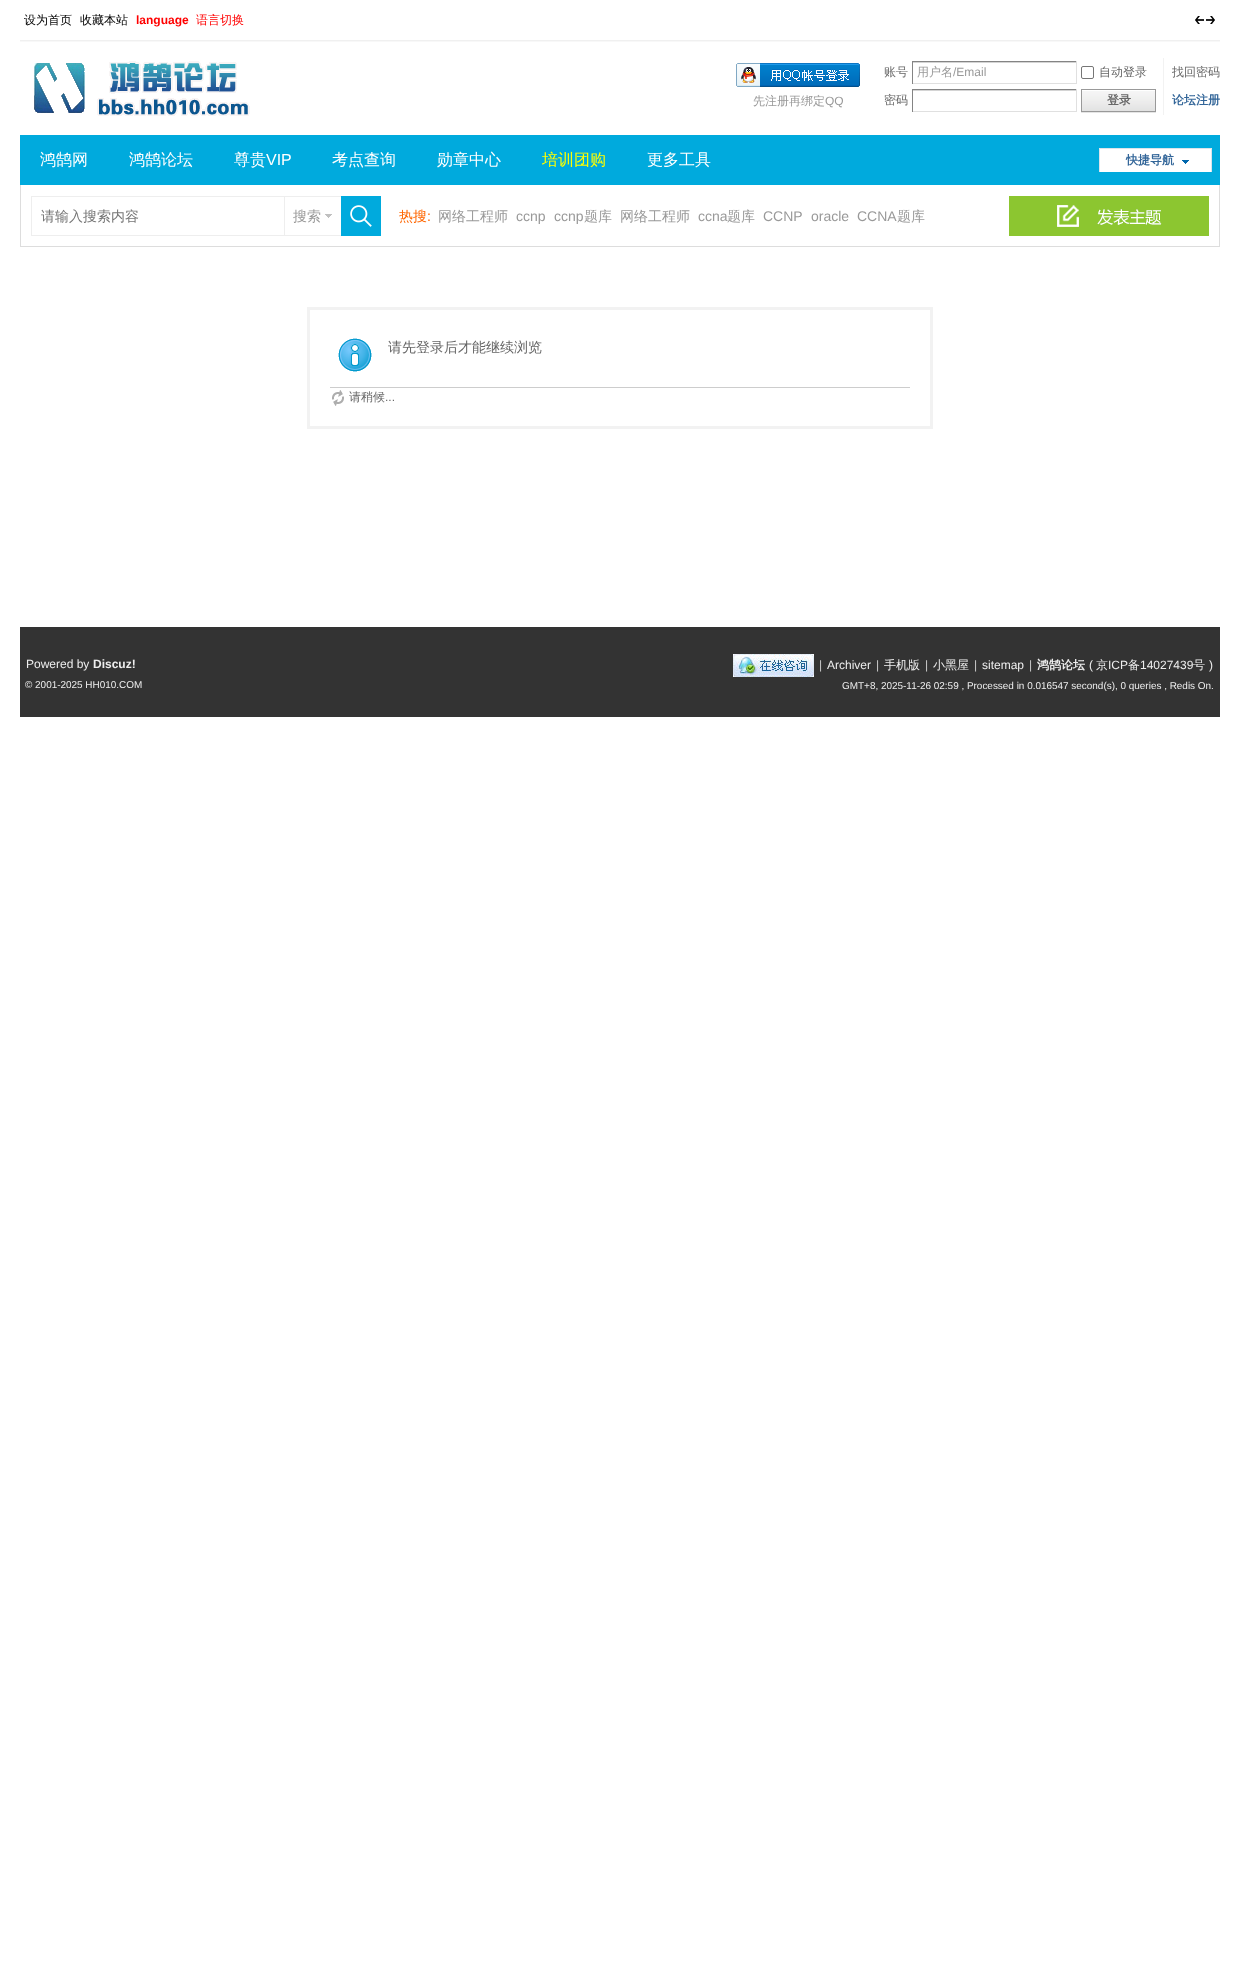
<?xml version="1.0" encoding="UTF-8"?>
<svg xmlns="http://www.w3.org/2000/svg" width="1239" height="1983">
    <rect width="100%" height="100%" fill="#FFFFFF"/>
    <image x="20" y="40" width="1200" height="2" href="img_01.png"/>
    <text x="24" y="24" font-family="WenQuanYi Zen Hei" font-size="12" font-weight="500" fill="#000000">设为首页</text>
    <text x="80" y="24" font-family="WenQuanYi Zen Hei" font-size="12" font-weight="500" fill="#000000">收藏本站</text>
    <text x="136" y="24" font-family="Liberation Sans" font-size="12" font-weight="700" fill="#FF0000">language</text>
    <text x="196" y="24" font-family="WenQuanYi Zen Hei" font-size="12" font-weight="500" fill="#FF0000">语言切换</text>
    <image x="1195" y="16" width="20" height="8" href="img_02.png"/>
    <image x="34" y="61" width="216" height="55" href="img_03.png"/>
    <image x="736" y="63" width="124" height="24" href="img_04.png"/>
    <text x="753" y="105" font-family="WenQuanYi Zen Hei" font-size="12" font-weight="500" fill="#999999">先注册再绑定</text>
    <text x="825" y="105" font-family="Liberation Sans" font-size="12" fill="#999999">QQ</text>
    <text x="884" y="76" font-family="WenQuanYi Zen Hei" font-size="12" font-weight="500" fill="#666666">账号</text>
    <rect x="912" y="62" width="165" height="1" fill="#D4D4D4"/>
    <rect x="912" y="61" width="165" height="1" fill="#848484"/>
    <rect x="1076" y="61" width="1" height="23" fill="#E0E0E0"/>
    <rect x="912" y="83" width="165" height="1" fill="#E0E0E0"/>
    <rect x="912" y="61" width="1" height="23" fill="#848484"/>
    <text x="917" y="76" font-family="WenQuanYi Zen Hei" font-size="12" font-weight="500" fill="#999999">用户名</text>
    <text x="953" y="76" font-family="Liberation Sans" font-size="12" fill="#999999">/Email</text>
    <rect x="1081.5" y="66.5" width="12" height="12" rx="1.5" fill="none" stroke="#767676"/>
    <text x="1099" y="76" font-family="WenQuanYi Zen Hei" font-size="12" font-weight="500" fill="#666666">自动登录</text>
    <text x="1172" y="76" font-family="WenQuanYi Zen Hei" font-size="12" font-weight="500" fill="#666666">找回密码</text>
    <text x="884" y="104" font-family="WenQuanYi Zen Hei" font-size="12" font-weight="500" fill="#666666">密码</text>
    <rect x="912" y="90" width="165" height="1" fill="#D4D4D4"/>
    <rect x="912" y="89" width="165" height="1" fill="#848484"/>
    <rect x="1076" y="89" width="1" height="23" fill="#E0E0E0"/>
    <rect x="912" y="111" width="165" height="1" fill="#E0E0E0"/>
    <rect x="912" y="89" width="1" height="23" fill="#848484"/>
    <rect x="1163" y="58" width="1" height="57" fill="#F2F2F2"/>
    <rect x="1081" y="112" width="75" height="1" fill="#E5E5E5"/>
    <image x="1082" y="90" width="73" height="21" href="img_05.png"/>
    <rect x="1081.5" y="89.5" width="74" height="22" fill="none" stroke="#999999"/>
    <text x="1107" y="104" font-family="WenQuanYi Zen Hei" font-size="12" font-weight="700" fill="#666666">登录</text>
    <text x="1172" y="104" font-family="WenQuanYi Zen Hei" font-size="12" font-weight="700" fill="#336699">论坛注册</text>
    <rect x="20" y="135" width="1200" height="50" fill="#00AADD"/>
    <text x="40" y="165" font-family="WenQuanYi Zen Hei" font-size="16" font-weight="500" fill="#FFFFFF">鸿鹄网</text>
    <text x="129" y="165" font-family="WenQuanYi Zen Hei" font-size="16" font-weight="500" fill="#FFFFFF">鸿鹄论坛</text>
    <text x="234" y="165" font-family="WenQuanYi Zen Hei" font-size="16" font-weight="500" fill="#FFFFFF">尊贵</text>
    <text x="266" y="165" font-family="Liberation Sans" font-size="16" fill="#FFFFFF">VIP</text>
    <text x="332" y="165" font-family="WenQuanYi Zen Hei" font-size="16" font-weight="500" fill="#FFFFFF">考点查询</text>
    <text x="437" y="165" font-family="WenQuanYi Zen Hei" font-size="16" font-weight="500" fill="#FFFFFF">勋章中心</text>
    <text x="542" y="165" font-family="WenQuanYi Zen Hei" font-size="16" font-weight="500" fill="#FFFF00">培训团购</text>
    <text x="647" y="165" font-family="WenQuanYi Zen Hei" font-size="16" font-weight="500" fill="#FFFFFF">更多工具</text>
    <image x="1099" y="148" width="113" height="24" href="img_06.png"/>
    <text x="1126" y="164" font-family="WenQuanYi Zen Hei" font-size="12" font-weight="700" fill="#336699">快捷导航</text>
    <rect x="1219" y="185" width="1" height="62" fill="#DDDDDD"/>
    <rect x="20" y="246" width="1200" height="1" fill="#DDDDDD"/>
    <rect x="20" y="185" width="1" height="62" fill="#DDDDDD"/>
    <image x="31" y="196" width="350" height="40" href="img_07.png"/>
    <text x="41" y="221" font-family="WenQuanYi Zen Hei" font-size="14" font-weight="500" fill="#757575">请输入搜索内容</text>
    <image x="325" y="214" width="7" height="4" href="img_08.png"/>
    <text x="293" y="221" font-family="WenQuanYi Zen Hei" font-size="14" font-weight="500" fill="#999999">搜索</text>
    <text x="399" y="221" font-family="WenQuanYi Zen Hei" font-size="14" font-weight="500" fill="#FF6600">热搜</text>
    <text x="427" y="221" font-family="Liberation Sans" font-size="14" fill="#FF6600">:</text>
    <text x="438" y="221" font-family="WenQuanYi Zen Hei" font-size="14" font-weight="500" fill="#999999">网络工程师</text>
    <text x="516" y="221" font-family="Liberation Sans" font-size="14" fill="#999999">ccnp</text>
    <text x="554" y="221" font-family="Liberation Sans" font-size="14" fill="#999999">ccnp</text>
    <text x="584" y="221" font-family="WenQuanYi Zen Hei" font-size="14" font-weight="500" fill="#999999">题库</text>
    <text x="620" y="221" font-family="WenQuanYi Zen Hei" font-size="14" font-weight="500" fill="#999999">网络工程师</text>
    <text x="698" y="221" font-family="Liberation Sans" font-size="14" fill="#999999">ccna</text>
    <text x="727" y="221" font-family="WenQuanYi Zen Hei" font-size="14" font-weight="500" fill="#999999">题库</text>
    <text x="763" y="221" font-family="Liberation Sans" font-size="14" fill="#999999">CCNP</text>
    <text x="811" y="221" font-family="Liberation Sans" font-size="14" fill="#999999">oracle</text>
    <text x="857" y="221" font-family="Liberation Sans" font-size="14" fill="#999999">CCNA</text>
    <text x="897" y="221" font-family="WenQuanYi Zen Hei" font-size="14" font-weight="500" fill="#999999">题库</text>
    <image x="1009" y="196" width="200" height="40" href="img_09.png"/>
    <rect x="308.5" y="308.5" width="623" height="119" fill="none" stroke="#F2F2F2" stroke-width="3"/>
    <image x="338" y="338" width="34" height="34" href="img_10.png"/>
    <text x="388" y="352" font-family="WenQuanYi Zen Hei" font-size="14" font-weight="500" fill="#666666">请先登录后才能继续浏览</text>
    <rect x="330" y="387" width="580" height="1" fill="#CDCDCD"/>
    <image x="332" y="390" width="12" height="16" href="img_11.png"/>
    <text x="349" y="401" font-family="WenQuanYi Zen Hei" font-size="12" font-weight="500" fill="#666666">请稍候</text>
    <text x="385" y="401" font-family="Liberation Sans" font-size="12" fill="#666666">...</text>
    <rect x="20" y="627" width="1200" height="90" fill="#333333"/>
    <text x="26" y="668" font-family="Liberation Sans" font-size="12" fill="#EEEEEE">Powered by</text>
    <text x="93" y="668" font-family="Liberation Sans" font-size="12" font-weight="700" fill="#EEEEEE">Discuz!</text>
    <text x="25" y="688" font-family="Liberation Sans" font-size="9.95" fill="#EEEEEE">© 2001-2025 HH010.COM</text>
    <image x="733" y="654" width="81" height="23" href="img_12.png"/>
    <text x="819" y="669" font-family="Liberation Sans" font-size="12" fill="#CCCCCC">|</text>
    <text x="827" y="669" font-family="Liberation Sans" font-size="12" fill="#EEEEEE">Archiver</text>
    <text x="876" y="669" font-family="Liberation Sans" font-size="12" fill="#CCCCCC">|</text>
    <text x="884" y="669" font-family="WenQuanYi Zen Hei" font-size="12" font-weight="500" fill="#EEEEEE">手机版</text>
    <text x="925" y="669" font-family="Liberation Sans" font-size="12" fill="#CCCCCC">|</text>
    <text x="933" y="669" font-family="WenQuanYi Zen Hei" font-size="12" font-weight="500" fill="#EEEEEE">小黑屋</text>
    <text x="974" y="669" font-family="Liberation Sans" font-size="12" fill="#CCCCCC">|</text>
    <text x="982" y="669" font-family="Liberation Sans" font-size="12" fill="#EEEEEE">sitemap</text>
    <text x="1029" y="669" font-family="Liberation Sans" font-size="12" fill="#CCCCCC">|</text>
    <text x="1037" y="669" font-family="WenQuanYi Zen Hei" font-size="12" font-weight="700" fill="#EEEEEE">鸿鹄论坛</text>
    <text x="1089" y="669" font-family="Liberation Sans" font-size="12" fill="#EEEEEE">(</text>
    <text x="1096" y="669" font-family="WenQuanYi Zen Hei" font-size="12" font-weight="500" fill="#EEEEEE">京</text>
    <text x="1108" y="669" font-family="Liberation Sans" font-size="12" fill="#EEEEEE">ICP</text>
    <text x="1128" y="669" font-family="WenQuanYi Zen Hei" font-size="12" font-weight="500" fill="#EEEEEE">备</text>
    <text x="1140" y="669" font-family="Liberation Sans" font-size="12" fill="#EEEEEE">14027439</text>
    <text x="1193" y="669" font-family="WenQuanYi Zen Hei" font-size="12" font-weight="500" fill="#EEEEEE">号</text>
    <text x="1209" y="669" font-family="Liberation Sans" font-size="12" fill="#EEEEEE">)</text>
    <text x="842" y="689" font-family="Liberation Sans" font-size="9.95" fill="#EEEEEE">GMT+8, 2025-11-26 02:59 , Processed in 0.016547 second(s), 0 queries , Redis On.</text>
</svg>
